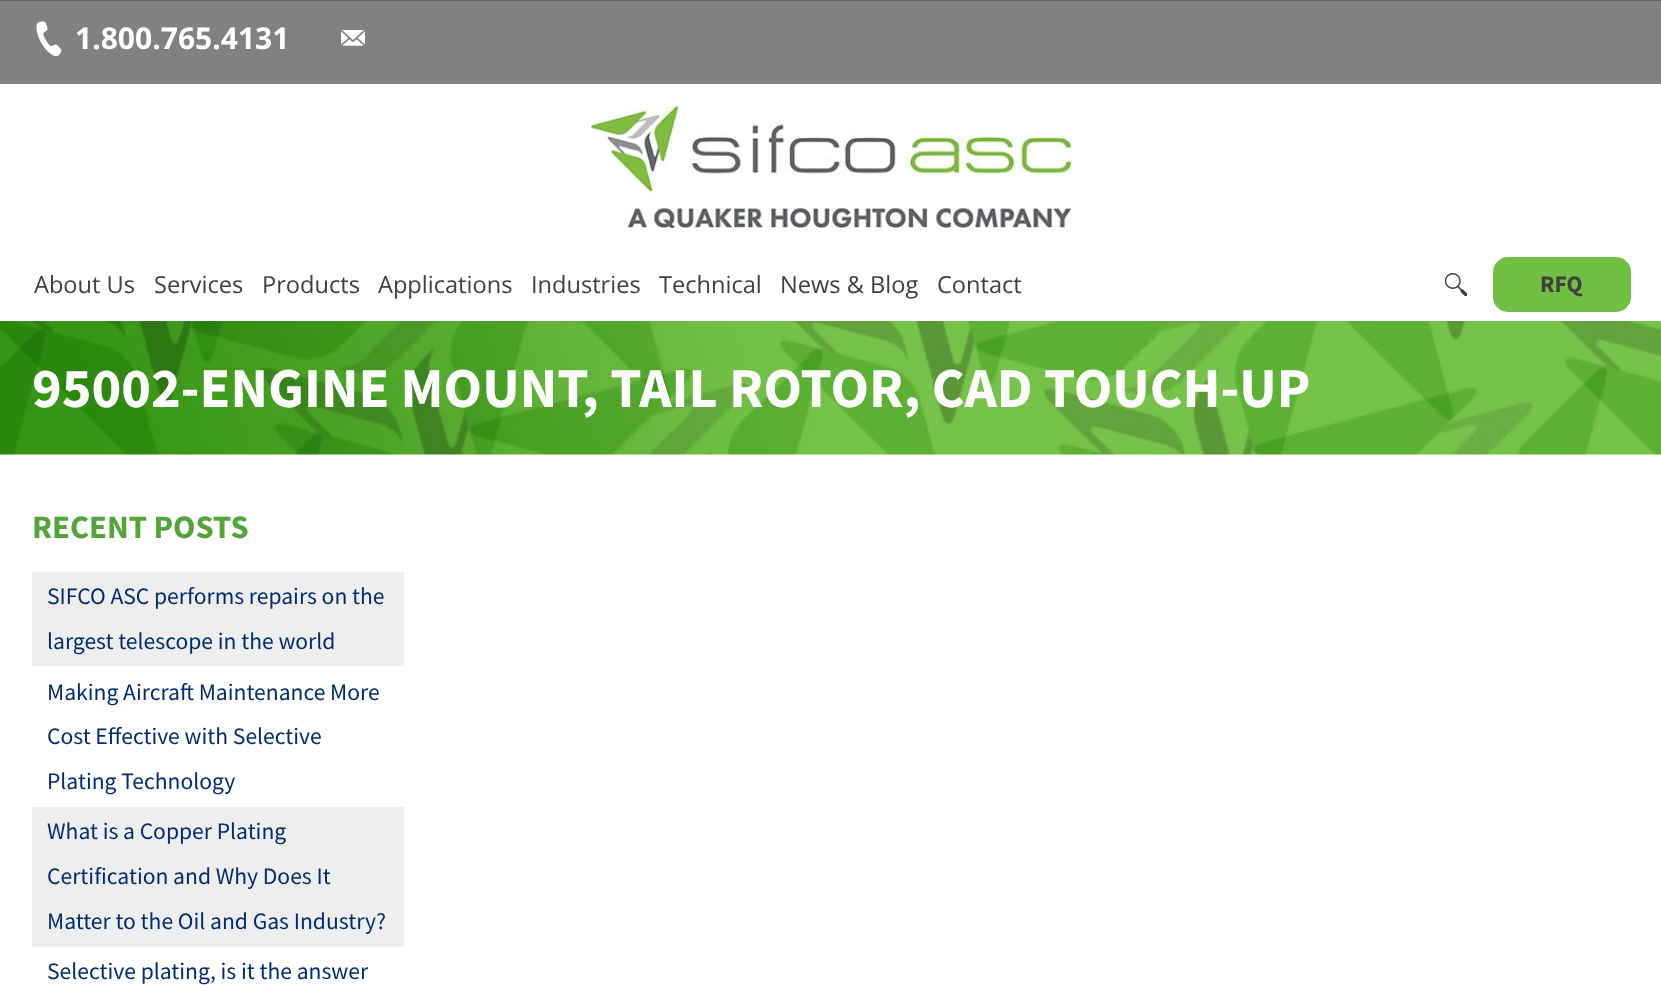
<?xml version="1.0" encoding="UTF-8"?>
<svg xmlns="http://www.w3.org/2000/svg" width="1661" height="1008">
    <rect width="100%" height="100%" fill="#FFFFFF"/>
    <rect x="0" y="0" width="1661" height="1" fill="#636568"/>
    <rect x="0" y="1" width="1661" height="83" fill="#808182"/>
    <image x="36" y="21" width="26" height="35" href="img_01.png"/>
    <text x="75" y="49" font-family="Open Sans" font-size="30" font-weight="700" fill="#FFFFFF">1.800.765.4131</text>
    <image x="341" y="30" width="24" height="16" href="img_02.png"/>
    <image x="591" y="106" width="480" height="122" href="img_03.png"/>
    <text x="34" y="293" font-family="Open Sans" font-size="23.6" fill="#3E4044">About Us</text>
    <text x="154" y="293" font-family="Open Sans" font-size="23.6" fill="#3E4044">Services</text>
    <text x="262" y="293" font-family="Open Sans" font-size="23.6" fill="#3E4044">Products</text>
    <text x="378" y="293" font-family="Open Sans" font-size="23.6" fill="#3E4044">Applications</text>
    <text x="531" y="293" font-family="Open Sans" font-size="23.6" fill="#3E4044">Industries</text>
    <text x="659" y="293" font-family="Open Sans" font-size="23.6" fill="#3E4044">Technical</text>
    <text x="780" y="293" font-family="Open Sans" font-size="23.6" fill="#3E4044">News &amp; Blog</text>
    <text x="937" y="293" font-family="Open Sans" font-size="23.6" fill="#3E4044">Contact</text>
    <image x="1445" y="273" width="22" height="23" href="img_04.png"/>
    <rect x="1494" y="258" width="136" height="53" rx="14" fill="#71BF43" stroke="#71BF43" stroke-width="2"/>
    <text x="1540" y="292" font-family="Source Sans Pro" font-size="23.6" font-weight="700" fill="#3E4044">RFQ</text>
    <image x="0" y="321" width="1661" height="134" href="img_05.png"/>
    <text x="32" y="407" font-family="Source Sans Pro" font-size="56.4" font-weight="700" fill="#FFFFFF">95002-ENGINE MOUNT, TAIL ROTOR, CAD TOUCH-UP</text>
    <text x="32" y="538" font-family="Source Sans Pro" font-size="32.75" font-weight="700" fill="#53A539">RECENT POSTS</text>
    <rect x="32" y="572" width="372" height="94" fill="#EEEEEE"/>
    <text font-family="Source Sans Pro" font-size="23.6" fill="#002D71">
        <tspan x="47" y="604">SIFCO ASC performs repairs on the</tspan>
        <tspan x="47" y="649">largest telescope in the world</tspan>
    </text>
    <text font-family="Source Sans Pro" font-size="23.6" fill="#002D71">
        <tspan x="47" y="700">Making Aircraft Maintenance More</tspan>
        <tspan x="47" y="744">Cost Effective with Selective</tspan>
        <tspan x="47" y="789">Plating Technology</tspan>
    </text>
    <rect x="32" y="807" width="372" height="140" fill="#EEEEEE"/>
    <text font-family="Source Sans Pro" font-size="23.6" fill="#002D71">
        <tspan x="47" y="839">What is a Copper Plating</tspan>
        <tspan x="47" y="884">Certification and Why Does It</tspan>
        <tspan x="47" y="929">Matter to the Oil and Gas Industry?</tspan>
    </text>
    <text x="47" y="979" font-family="Source Sans Pro" font-size="23.6" fill="#002D71">Selective plating, is it the answer</text>
</svg>
